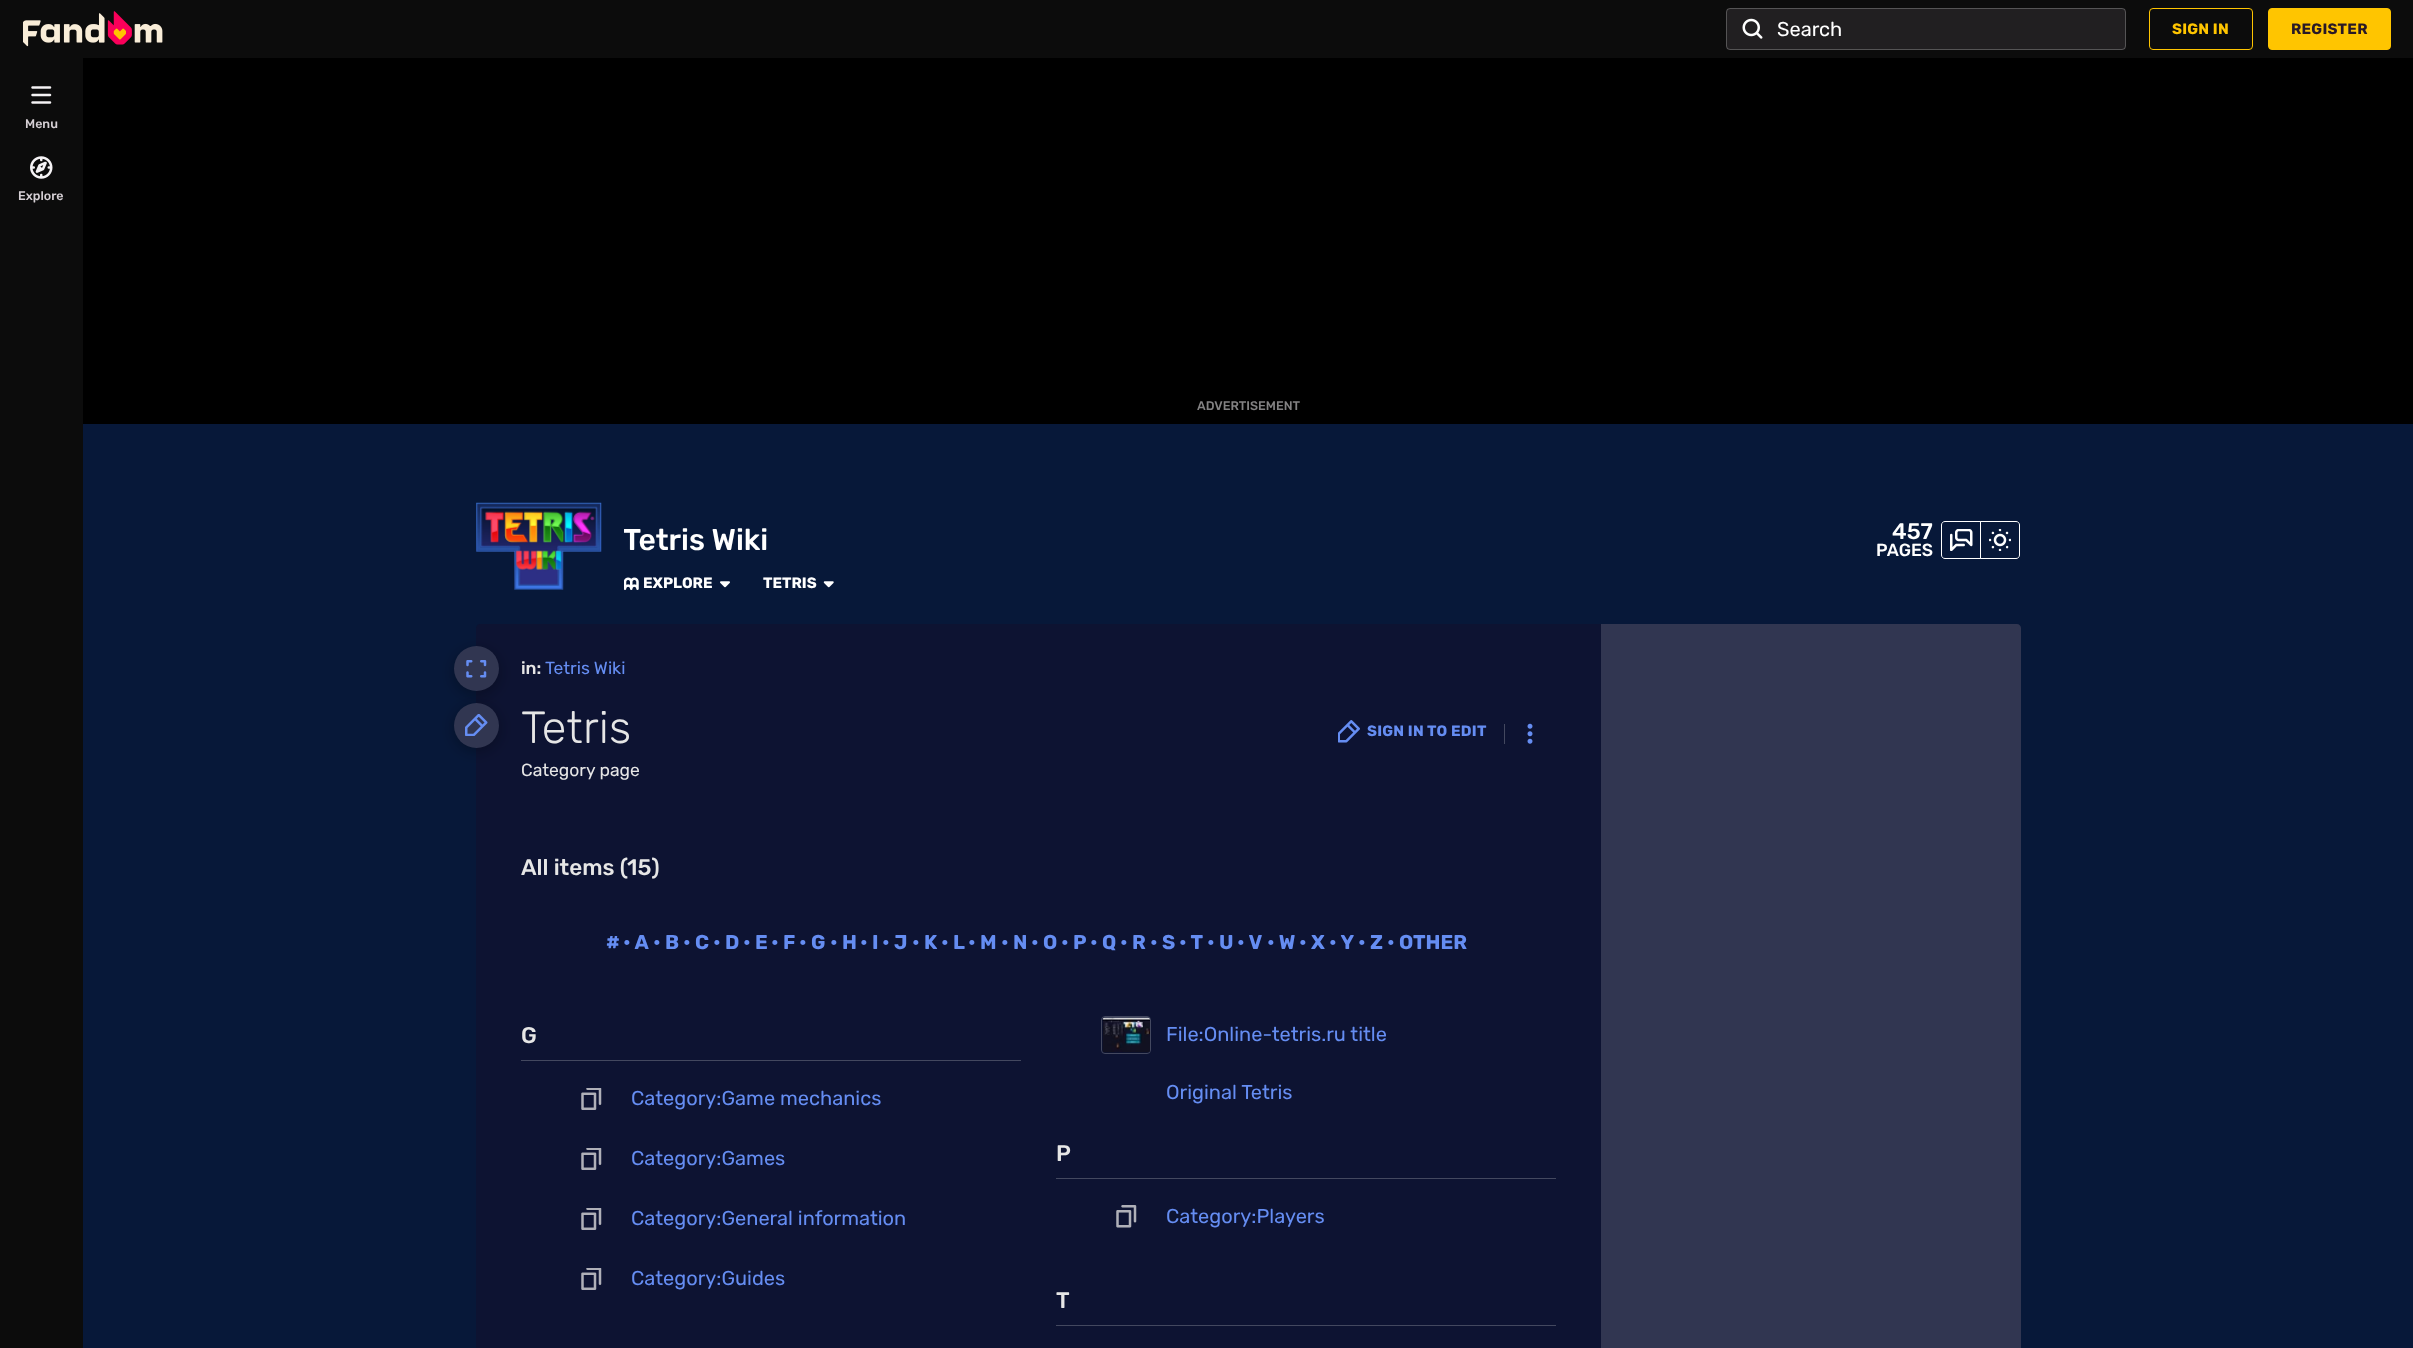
<?xml version="1.0" encoding="UTF-8"?>
<svg xmlns="http://www.w3.org/2000/svg" width="2413" height="1348">
    <defs>
        <clipPath id="clip1"><rect x="624" y="521" width="145" height="38"/></clipPath>
        <filter id="blur1" x="-50%" y="-200%" width="200%" height="500%"><feGaussianBlur stdDeviation="7.5"/></filter>
    </defs>
    <rect width="100%" height="100%" fill="#071839"/>
    <rect x="0" y="0" width="2413" height="58" fill="#0C0C0C"/>
    <image x="23" y="11" width="140" height="36" href="img_01.png"/>
    <rect x="1726" y="8" width="400" height="42" rx="4" fill="#211F21"/>
    <rect x="1726.5" y="8.5" width="399" height="41" rx="3.5" fill="none" stroke="#F5F3F5" stroke-opacity="0.25"/>
    <image x="1742" y="18" width="21" height="21" href="img_02.png"/>
    <text x="1777" y="36" font-family="Rubik" font-size="20" fill="#FFFFFF">Search</text>
    <rect x="2149.5" y="8.5" width="103" height="41" rx="3.5" fill="none" stroke="#FFC500"/>
    <text x="2172" y="34" font-family="Rubik" font-size="15" font-weight="700" letter-spacing="0.25" fill="#FFC500">SIGN IN</text>
    <rect x="2268.5" y="8.5" width="122" height="41" rx="3.5" fill="#FFC500" stroke="#FFC500"/>
    <text x="2291" y="34" font-family="Rubik" font-size="15" font-weight="700" letter-spacing="0.25" fill="#291927">REGISTER</text>
    <rect x="0" y="58" width="83" height="1290" fill="#0C0C0C"/>
    <image x="31" y="86" width="21" height="18" href="img_03.png"/>
    <text x="25" y="128" font-family="Rubik" font-size="12.5" font-weight="500" fill="#D6D0D5">Menu</text>
    <image x="30" y="156" width="23" height="23" href="img_04.png"/>
    <text x="18" y="200" font-family="Rubik" font-size="12.5" font-weight="500" fill="#D6D0D5">Explore</text>
    <rect x="83" y="58" width="2330" height="366" fill="#000000"/>
    <text x="1197" y="410" font-family="Rubik" font-size="12.5" font-weight="500" fill="#838283">ADVERTISEMENT</text>
    <image x="476" y="502" width="126" height="88" href="img_05.png"/>
    <g clip-path="url(#clip1)">
        <text x="623" y="550" font-family="Rubik" font-size="30" font-weight="500" fill="#FFFFFF">Tetris Wiki</text>
    </g>
    <text x="1892" y="539" font-family="Rubik" font-size="22.5" font-weight="500" fill="#FFFFFF">457</text>
    <text x="1876" y="556" font-family="Rubik" font-size="17.5" font-weight="500" fill="#FFFFFF">PAGES</text>
    <path d="M 1945 521.5 H 1980.5 V 558.5 H 1945 C 1943 558.5 1941.5 557 1941.5 555 V 525 C 1941.5 523 1943 521.5 1945 521.5 Z" fill="none" stroke="#FFFFFF"/>
    <image x="1950" y="529" width="23" height="22" href="img_06.png"/>
    <path d="M 1980.5 521.5 H 2016 C 2018 521.5 2019.5 523 2019.5 525 V 555 C 2019.5 557 2018 558.5 2016 558.5 H 1980.5 Z" fill="none" stroke="#FFFFFF"/>
    <image x="1989" y="529" width="22" height="22" href="img_07.png"/>
    <image x="624" y="577" width="15" height="13" href="img_08.png"/>
    <text x="643" y="588" font-family="Rubik" font-size="15" font-weight="700" fill="#FFFFFF">EXPLORE</text>
    <image x="720" y="581" width="10" height="7" href="img_09.png"/>
    <text x="763" y="588" font-family="Rubik" font-size="15" font-weight="700" fill="#FFFFFF">TETRIS</text>
    <image x="823" y="581" width="11" height="7" href="img_10.png"/>
    <path d="M 480 624 H 1601 V 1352 H 480 C 478 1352 476 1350 476 1348 V 628 C 476 626 478 624 480 624 Z" fill="#0D1332"/>
    <rect x="454" y="650" width="45" height="45" rx="22.5" fill="#000000" fill-opacity="0.3" filter="url(#blur1)"/>
    <circle cx="476.5" cy="668.5" r="22.5" fill="#313651"/>
    <image x="466" y="660" width="21" height="18" href="img_11.png"/>
    <rect x="454" y="706" width="45" height="45" rx="22.5" fill="#000000" fill-opacity="0.3" filter="url(#blur1)"/>
    <circle cx="476.5" cy="725.5" r="22.5" fill="#313651"/>
    <image x="465" y="714" width="23" height="22" href="img_12.png"/>
    <text x="521" y="674" font-family="Rubik" font-size="17.5" font-weight="500" fill="#E6E6E6">in:</text>
    <text x="545" y="674" font-family="Rubik" font-size="17.5" fill="#658DF2">Tetris Wiki</text>
    <text x="521" y="743" font-family="Rubik" font-size="45" font-weight="300" letter-spacing="0.25" fill="#E6E6E6">Tetris</text>
    <text x="521" y="776" font-family="Rubik" font-size="17.5" fill="#E6E6E6">Category page</text>
    <image x="1338" y="720" width="22" height="23" href="img_13.png"/>
    <text x="1367" y="736" font-family="Rubik" font-size="15" font-weight="700" letter-spacing="0.25" fill="#658DF2">SIGN IN TO EDIT</text>
    <rect x="1504" y="724" width="1" height="20" fill="#43485F"/>
    <image x="1527" y="723" width="6" height="21" href="img_14.png"/>
    <text x="521" y="875" font-family="Rubik" font-size="22.5" font-weight="500" fill="#E6E6E6">All items (15)</text>
    <text x="606" y="949" font-family="Rubik" font-size="20" font-weight="700" fill="#658DF2">#</text>
    <text x="623" y="949" font-family="Rubik" font-size="20" font-weight="700" fill="#658DF2">• A</text>
    <text x="653" y="949" font-family="Rubik" font-size="20" font-weight="700" fill="#658DF2">• B</text>
    <text x="683" y="949" font-family="Rubik" font-size="20" font-weight="700" fill="#658DF2">• C</text>
    <text x="713" y="949" font-family="Rubik" font-size="20" font-weight="700" fill="#658DF2">• D</text>
    <text x="743" y="949" font-family="Rubik" font-size="20" font-weight="700" fill="#658DF2">• E</text>
    <text x="771" y="949" font-family="Rubik" font-size="20" font-weight="700" fill="#658DF2">• F</text>
    <text x="799" y="949" font-family="Rubik" font-size="20" font-weight="700" fill="#658DF2">• G</text>
    <text x="830" y="949" font-family="Rubik" font-size="20" font-weight="700" fill="#658DF2">• H</text>
    <text x="860" y="949" font-family="Rubik" font-size="20" font-weight="700" fill="#658DF2">• I</text>
    <text x="882" y="949" font-family="Rubik" font-size="20" font-weight="700" fill="#658DF2">• J</text>
    <text x="912" y="949" font-family="Rubik" font-size="20" font-weight="700" fill="#658DF2">• K</text>
    <text x="941" y="949" font-family="Rubik" font-size="20" font-weight="700" fill="#658DF2">• L</text>
    <text x="968" y="949" font-family="Rubik" font-size="20" font-weight="700" fill="#658DF2">• M</text>
    <text x="1001" y="949" font-family="Rubik" font-size="20" font-weight="700" fill="#658DF2">• N</text>
    <text x="1031" y="949" font-family="Rubik" font-size="20" font-weight="700" fill="#658DF2">• O</text>
    <text x="1061" y="949" font-family="Rubik" font-size="20" font-weight="700" fill="#658DF2">• P</text>
    <text x="1090" y="949" font-family="Rubik" font-size="20" font-weight="700" fill="#658DF2">• Q</text>
    <text x="1120" y="949" font-family="Rubik" font-size="20" font-weight="700" fill="#658DF2">• R</text>
    <text x="1150" y="949" font-family="Rubik" font-size="20" font-weight="700" fill="#658DF2">• S</text>
    <text x="1179" y="949" font-family="Rubik" font-size="20" font-weight="700" fill="#658DF2">• T</text>
    <text x="1207" y="949" font-family="Rubik" font-size="20" font-weight="700" fill="#658DF2">• U</text>
    <text x="1237" y="949" font-family="Rubik" font-size="20" font-weight="700" fill="#658DF2">• V</text>
    <text x="1267" y="949" font-family="Rubik" font-size="20" font-weight="700" fill="#658DF2">• W</text>
    <text x="1299" y="949" font-family="Rubik" font-size="20" font-weight="700" fill="#658DF2">• X</text>
    <text x="1329" y="949" font-family="Rubik" font-size="20" font-weight="700" fill="#658DF2">• Y</text>
    <text x="1358" y="949" font-family="Rubik" font-size="20" font-weight="700" fill="#658DF2">• Z</text>
    <text x="1387" y="949" font-family="Rubik" font-size="20" font-weight="700" fill="#658DF2">• OTHER</text>
    <rect x="521" y="1060" width="500" height="1" fill="#43485F"/>
    <text x="521" y="1043" font-family="Rubik" font-size="22.5" font-weight="500" fill="#E6E6E6">G</text>
    <image x="581" y="1088" width="21" height="22" href="img_15.png"/>
    <text x="631" y="1105" font-family="Rubik" font-size="20" fill="#658DF2">Category:Game mechanics</text>
    <image x="581" y="1148" width="21" height="22" href="img_15.png"/>
    <text x="631" y="1165" font-family="Rubik" font-size="20" fill="#658DF2">Category:Games</text>
    <image x="581" y="1208" width="21" height="22" href="img_15.png"/>
    <text x="631" y="1225" font-family="Rubik" font-size="20" fill="#658DF2">Category:General information</text>
    <image x="581" y="1268" width="21" height="22" href="img_15.png"/>
    <text x="631" y="1285" font-family="Rubik" font-size="20" fill="#658DF2">Category:Guides</text>
    <rect x="1101.5" y="1016.5" width="49" height="37" rx="3.5" fill="none" stroke="#43485F"/>
    <image x="1102" y="1017" width="48" height="36" href="img_16.png"/>
    <text x="1166" y="1041" font-family="Rubik" font-size="20" fill="#658DF2">File:Online-tetris.ru title</text>
    <text x="1166" y="1099" font-family="Rubik" font-size="20" fill="#658DF2">Original Tetris</text>
    <rect x="1056" y="1178" width="500" height="1" fill="#43485F"/>
    <text x="1056" y="1161" font-family="Rubik" font-size="22.5" font-weight="500" fill="#E6E6E6">P</text>
    <image x="1116" y="1205" width="21" height="23" href="img_17.png"/>
    <text x="1166" y="1223" font-family="Rubik" font-size="20" fill="#658DF2">Category:Players</text>
    <rect x="1056" y="1325" width="500" height="1" fill="#43485F"/>
    <text x="1056" y="1308" font-family="Rubik" font-size="22.5" font-weight="500" fill="#E6E6E6">T</text>
    <path d="M 1601 624 H 2017 C 2019 624 2021 626 2021 628 V 1348 C 2021 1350 2019 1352 2017 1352 H 1601 Z" fill="#313651"/>
</svg>
